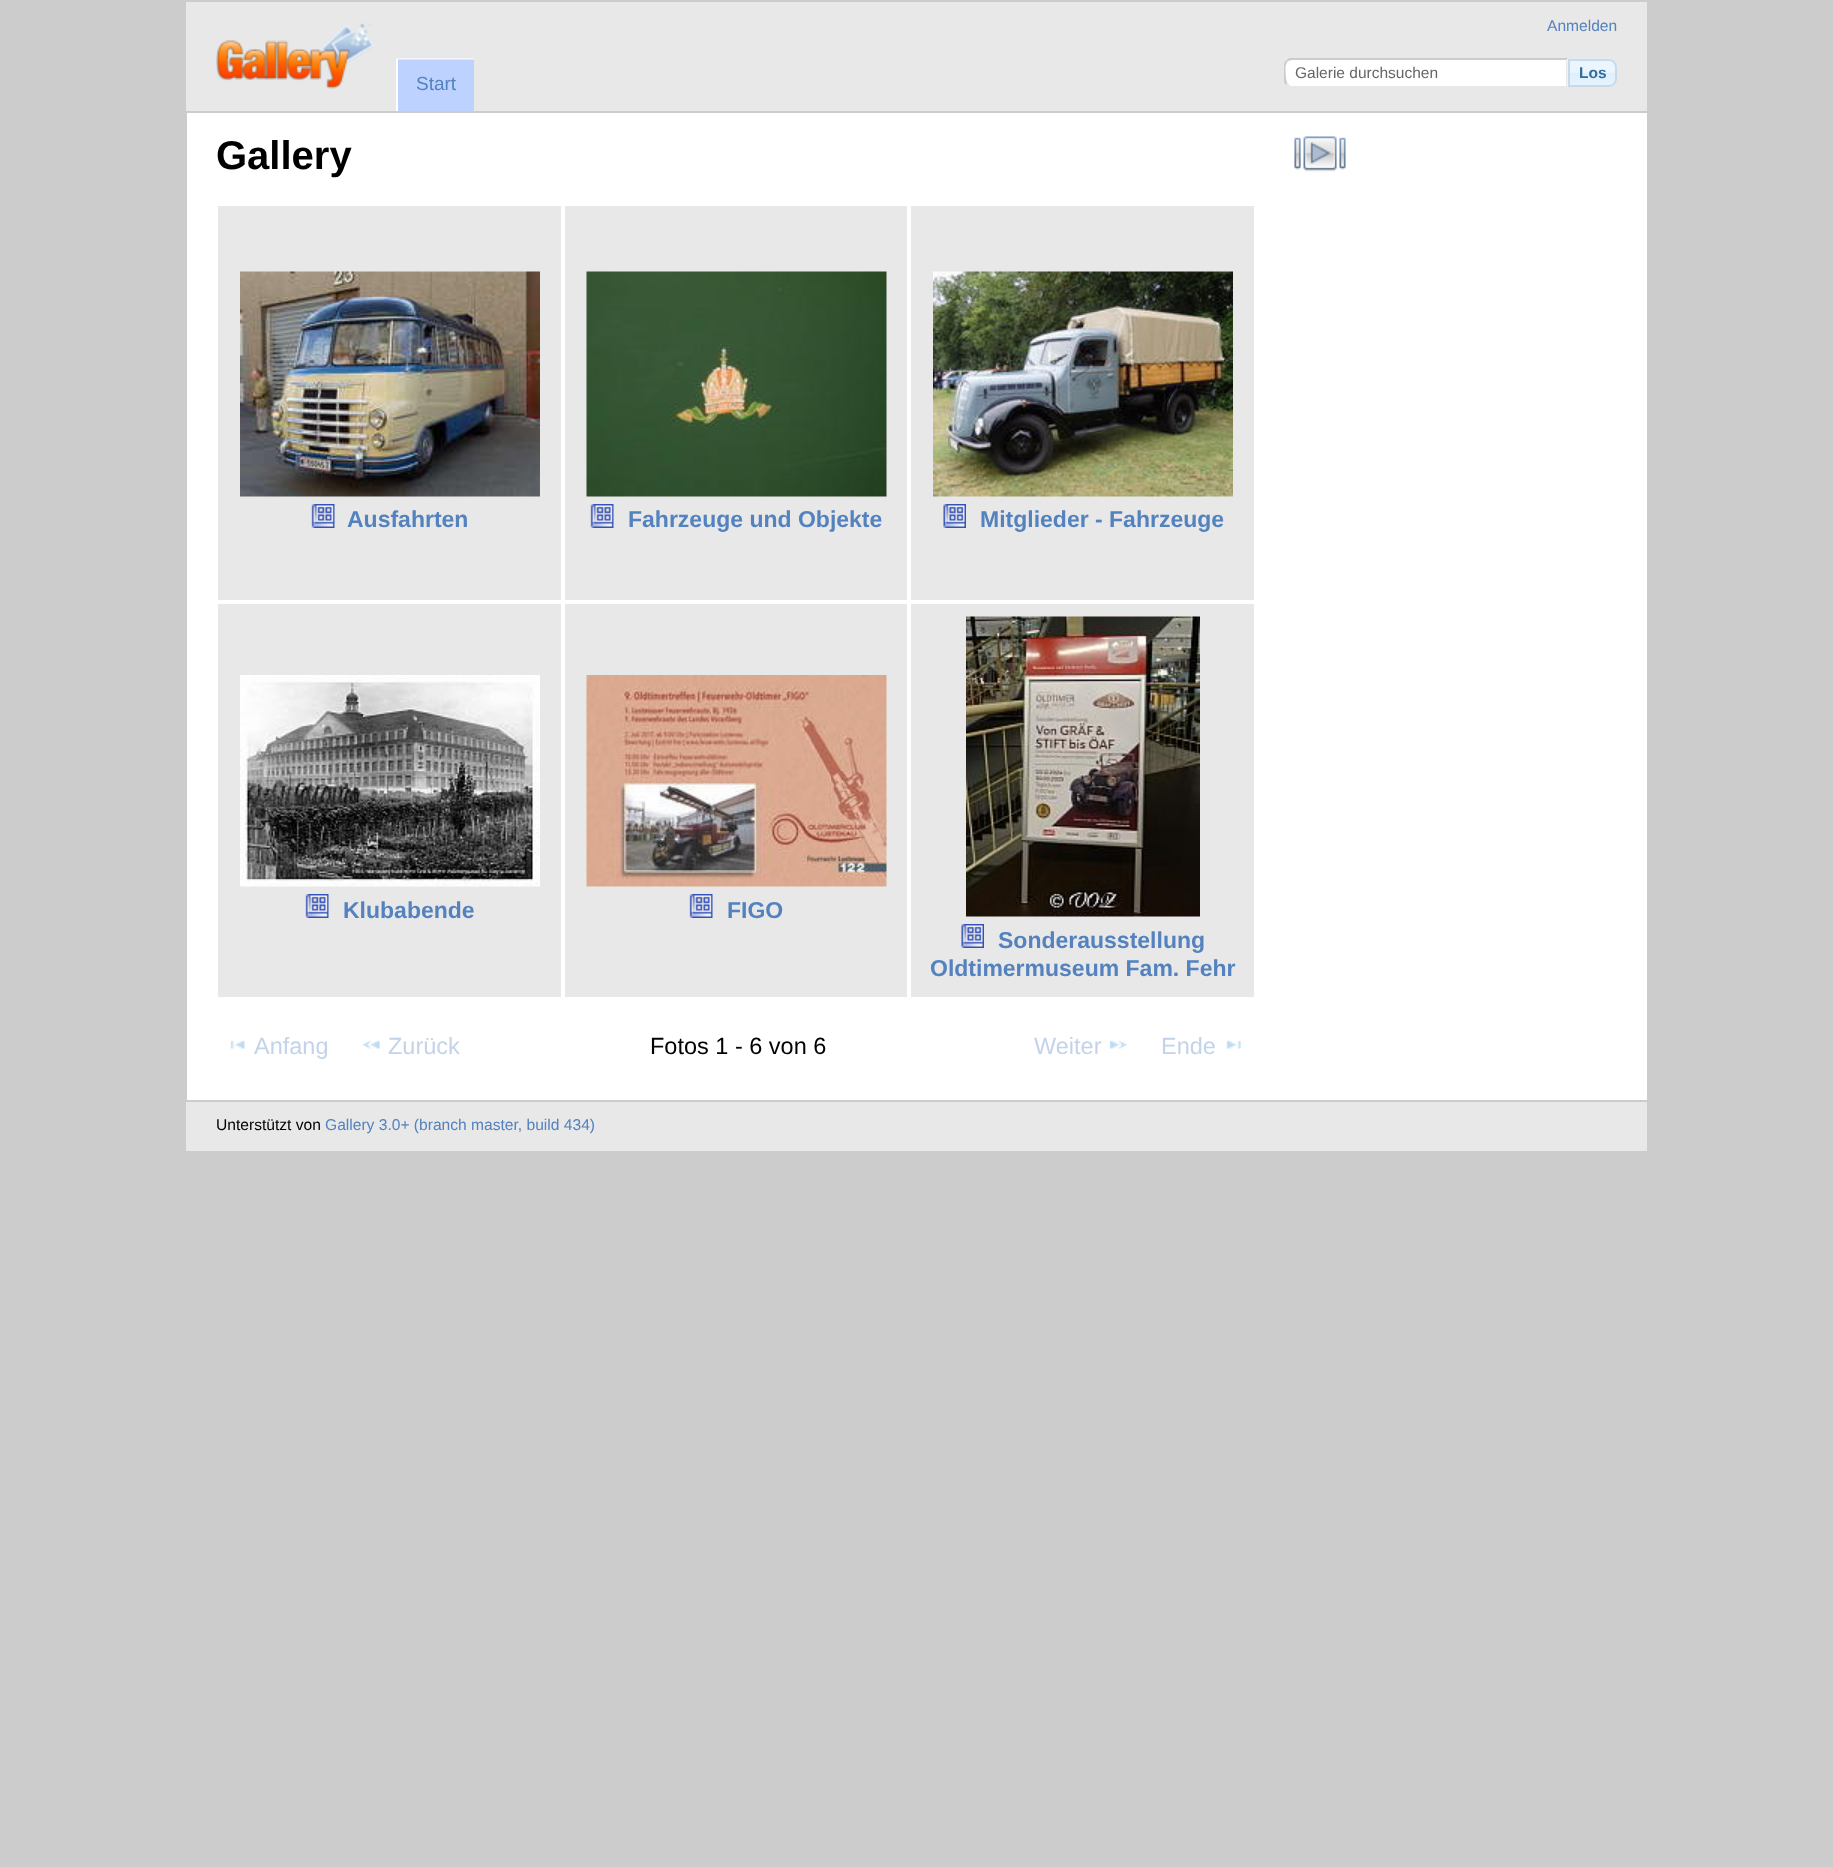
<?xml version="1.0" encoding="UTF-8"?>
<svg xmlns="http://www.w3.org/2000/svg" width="1833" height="1867">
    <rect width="100%" height="100%" fill="#CCCCCC"/>
    <rect x="187" y="113" width="1460" height="987" fill="#FFFFFF"/>
    <rect x="186" y="2" width="1461" height="109" fill="#E8E8E8"/>
    <image x="216" y="23" width="159" height="66" href="img_01.png"/>
    <text x="1547" y="31" font-family="Liberation Sans" font-size="15.6" fill="#5382BF">Anmelden</text>
    <path d="M 1292 59 H 1568 V 87 H 1292 C 1287.5 87 1284 83.5 1284 79 V 67 C 1284 62.5 1287.5 59 1292 59 Z" fill="#FFFFFF"/>
    <path d="M 1292 60 C 1290 60 1288 61 1287 62 L 1286 61 L 1289 58 H 1568 L 1566 60 Z" fill="#CCCCCC"/>
    <path d="M 1567.5 58.5 L 1566 60 V 85.5 L 1567.5 87 Z" fill="#E8E8E8"/>
    <path d="M 1568 87 L 1566 86 H 1292 C 1290 86 1289 85 1288 83 L 1286 85 C 1287 86 1289 87 1292 87 Z" fill="#E8E8E8"/>
    <path d="M 1284 66 V 80 C 1284 82 1284.5 83.5 1286 85 L 1287.5 83.5 C 1285.5 80.5 1285.5 68.5 1285.5 66 C 1286 64.5 1286.5 63 1287.5 62 L 1286 60.5 C 1284.5 62 1284 64 1284 66 Z" fill="#CCCCCC"/>
    <text x="1295" y="78" font-family="Liberation Sans" font-size="15.5" fill="#666666">Galerie durchsuchen</text>
    <image x="1567" y="58" width="50" height="29" href="img_02.png"/>
    <path d="M 1569 60 H 1609 C 1613 60 1616 63 1616 67 V 79 C 1616 83 1613 86 1609 86 H 1569 Z" fill="none" stroke="#C5DBEC" stroke-width="2"/>
    <text x="1579" y="78" font-family="Liberation Sans" font-size="15.5" font-weight="700" fill="#2E6E9E">Los</text>
    <rect x="397" y="59" width="77" height="52" fill="#BDD2FF"/>
    <path d="M 396 58 H 474 V 60 H 398 Z" fill="#FFFFFF" fill-opacity="0.5"/>
    <path d="M 396 111 V 58 L 398 60 V 111 Z" fill="#FFFFFF"/>
    <text x="416" y="90" font-family="Liberation Sans" font-size="19" fill="#5382BF">Start</text>
    <text x="216" y="169" font-family="Liberation Sans" font-size="40" font-weight="700" fill="#000000">Gallery</text>
    <rect x="218" y="206" width="343" height="394" fill="#E8E8E8"/>
    <image x="240" y="271" width="300" height="226" href="img_03.png"/>
    <image x="311" y="504" width="24" height="24" href="img_04.png"/>
    <text x="347" y="527" font-family="Liberation Sans" font-size="23" font-weight="700" fill="#5382BF">Ausfahrten</text>
    <rect x="565" y="206" width="342" height="394" fill="#E8E8E8"/>
    <image x="586" y="271" width="301" height="226" href="img_05.png"/>
    <image x="590" y="504" width="24" height="24" href="img_06.png"/>
    <text x="628" y="527" font-family="Liberation Sans" font-size="23" font-weight="700" fill="#5382BF">Fahrzeuge und Objekte</text>
    <rect x="911" y="206" width="343" height="394" fill="#E8E8E8"/>
    <image x="933" y="271" width="300" height="226" href="img_07.png"/>
    <image x="943" y="504" width="23" height="24" href="img_08.png"/>
    <text x="980" y="527" font-family="Liberation Sans" font-size="23" font-weight="700" fill="#5382BF">Mitglieder - Fahrzeuge</text>
    <rect x="218" y="604" width="343" height="393" fill="#E8E8E8"/>
    <image x="240" y="675" width="300" height="212" href="img_09.png"/>
    <image x="305" y="894" width="24" height="24" href="img_04.png"/>
    <text x="343" y="918" font-family="Liberation Sans" font-size="23" font-weight="700" fill="#5382BF">Klubabende</text>
    <rect x="565" y="604" width="342" height="393" fill="#E8E8E8"/>
    <image x="586" y="675" width="301" height="212" href="img_10.png"/>
    <image x="689" y="894" width="24" height="24" href="img_06.png"/>
    <text x="727" y="918" font-family="Liberation Sans" font-size="23" font-weight="700" fill="#5382BF">FIGO</text>
    <rect x="911" y="604" width="343" height="393" fill="#E8E8E8"/>
    <image x="966" y="616" width="234" height="301" href="img_11.png"/>
    <image x="961" y="924" width="23" height="24" href="img_08.png"/>
    <text x="998" y="948" font-family="Liberation Sans" font-size="23" font-weight="700" fill="#5382BF">Sonderausstellung</text>
    <text x="930" y="976" font-family="Liberation Sans" font-size="23" font-weight="700" fill="#5382BF">Oldtimermuseum Fam. Fehr</text>
    <image x="230" y="1040" width="15" height="9" href="img_12.png"/>
    <text x="254" y="1054" font-family="Liberation Sans" font-size="23.5" fill="#C3D3E9">Anfang</text>
    <image x="362" y="1040" width="18" height="9" href="img_13.png"/>
    <text x="388" y="1054" font-family="Liberation Sans" font-size="23.5" fill="#C3D3E9">Zurück</text>
    <text x="650" y="1054" font-family="Liberation Sans" font-size="23.5" fill="#000000">Fotos 1 - 6 von 6</text>
    <text x="1034" y="1054" font-family="Liberation Sans" font-size="23.5" fill="#C3D3E9">Weiter</text>
    <image x="1109" y="1040" width="18" height="9" href="img_14.png"/>
    <text x="1161" y="1054" font-family="Liberation Sans" font-size="23.5" fill="#C3D3E9">Ende</text>
    <image x="1226" y="1040" width="15" height="9" href="img_15.png"/>
    <image x="1294" y="136" width="52" height="36" href="img_16.png"/>
    <rect x="186" y="1102" width="1461" height="49" fill="#E8E8E8"/>
    <text x="216" y="1130" font-family="Liberation Sans" font-size="15.6" fill="#000000">Unterstützt von</text>
    <text x="325" y="1130" font-family="Liberation Sans" font-size="15.6" fill="#5382BF">Gallery 3.0+ (branch master, build 434)</text>
</svg>
